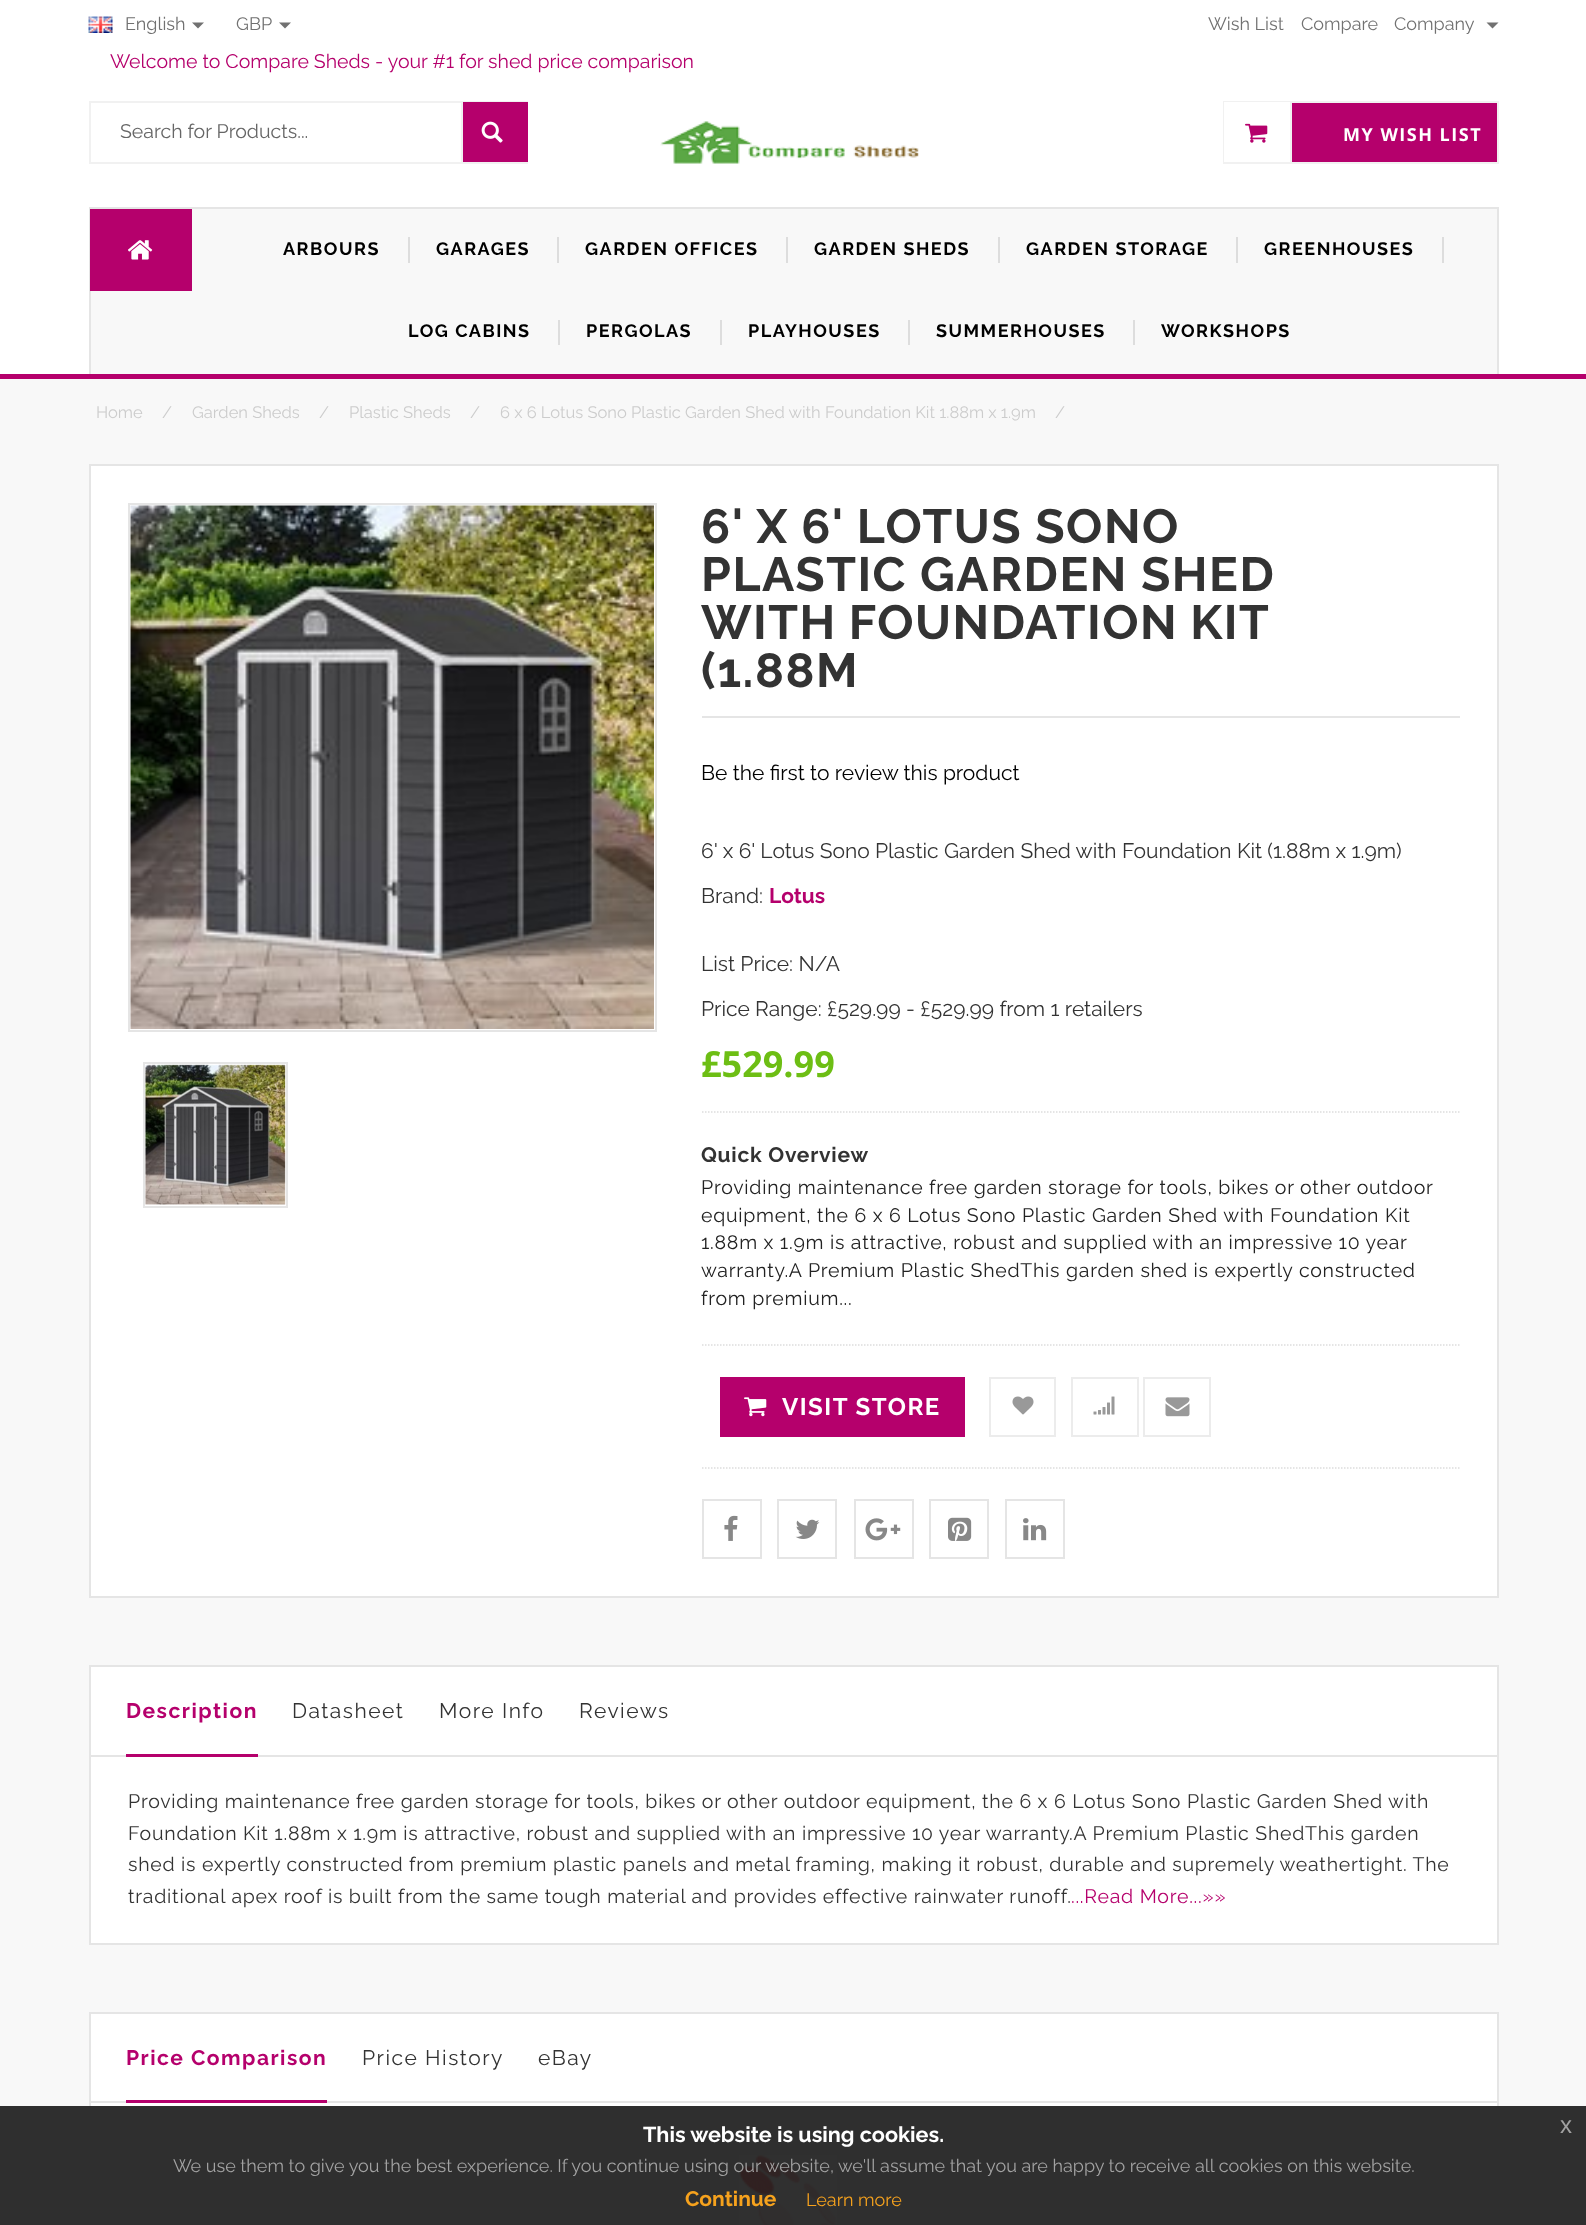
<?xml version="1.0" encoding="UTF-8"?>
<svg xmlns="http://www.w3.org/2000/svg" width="1586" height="2225">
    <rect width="100%" height="100%" fill="#F8F8F8"/>
    <rect x="0" y="2106" width="1586" height="119" fill="#2F2F2F"/>
    <rect x="0" y="0" width="1586" height="374" fill="#FFFFFF"/>
    <image x="88" y="16" width="25" height="17" href="img_01.png"/>
    <text x="125" y="30" font-family="Raleway" font-size="18" fill="#717171">English</text>
    <path d="M 192 22.5 H 204 L 198 28.5 Z" fill="#717171"/>
    <text x="236" y="30" font-family="Raleway" font-size="18" fill="#717171">GBP</text>
    <path d="M 279 22.5 H 291 L 285 28.5 Z" fill="#717171"/>
    <text x="110" y="68" font-family="Raleway" font-size="19.5" fill="#B5006C">Welcome to Compare Sheds - your #1 for shed price comparison</text>
    <text x="1208" y="30" font-family="Raleway" font-size="18" fill="#717171">Wish List</text>
    <text x="1301" y="30" font-family="Raleway" font-size="18" fill="#717171">Compare</text>
    <text x="1394" y="30" font-family="Raleway" font-size="18" fill="#717171">Company</text>
    <path d="M 1486.5 22.5 H 1498.5 L 1492.5 28.5 Z" fill="#717171"/>
    <rect x="90" y="102" width="437" height="61" fill="none" stroke="#F1F1F1" stroke-width="2"/>
    <text x="120" y="138" font-family="Raleway" font-size="19.5" fill="#666666">Search for Products...</text>
    <rect x="463" y="102" width="65" height="60" fill="#B5006C"/>
    <rect x="461" y="102" width="2" height="60" fill="#F1F1F1"/>
    <image x="481" y="121" width="22" height="22" href="img_02.png"/>
    <image x="660" y="121" width="259" height="43" href="img_03.png"/>
    <rect x="1292" y="103" width="205" height="59" fill="#B5006C"/>
    <rect x="1224" y="102" width="274" height="61" fill="none" stroke="#F1F1F1" stroke-width="2"/>
    <rect x="1224" y="102" width="66" height="60" fill="#FFFFFF"/>
    <rect x="1290" y="102" width="2" height="60" fill="#F1F1F1"/>
    <image x="1245" y="123" width="23" height="20" href="img_04.png"/>
    <text x="1343" y="141" font-family="Open Sans" font-size="18" font-weight="700" letter-spacing="1.5" fill="#FFFFFF">MY WISH LIST</text>
    <rect x="0" y="374" width="1586" height="5" fill="#B5006C"/>
    <rect x="91" y="209" width="1406" height="165" fill="#F8F8F8"/>
    <rect x="89" y="207" width="1410" height="2" fill="#E5E5E5"/>
    <rect x="1497" y="207" width="2" height="167" fill="#E5E5E5"/>
    <rect x="89" y="207" width="2" height="167" fill="#E5E5E5"/>
    <rect x="90" y="209" width="102" height="82" fill="#B5006C"/>
    <image x="128" y="240" width="25" height="20" href="img_05.png"/>
    <rect x="408" y="237" width="2" height="26" fill="#DDDDDD"/>
    <text x="283" y="255" font-family="Raleway" font-size="18" font-weight="700" letter-spacing="1.5" fill="#000000">ARBOURS</text>
    <rect x="557" y="237" width="2" height="26" fill="#DDDDDD"/>
    <text x="436" y="255" font-family="Raleway" font-size="18" font-weight="700" letter-spacing="1.5" fill="#000000">GARAGES</text>
    <rect x="786" y="237" width="2" height="26" fill="#DDDDDD"/>
    <text x="585" y="255" font-family="Raleway" font-size="18" font-weight="700" letter-spacing="1.5" fill="#000000">GARDEN OFFICES</text>
    <rect x="998" y="237" width="2" height="26" fill="#DDDDDD"/>
    <text x="814" y="255" font-family="Raleway" font-size="18" font-weight="700" letter-spacing="1.5" fill="#000000">GARDEN SHEDS</text>
    <rect x="1236" y="237" width="2" height="26" fill="#DDDDDD"/>
    <text x="1026" y="255" font-family="Raleway" font-size="18" font-weight="700" letter-spacing="1.5" fill="#000000">GARDEN STORAGE</text>
    <rect x="1442" y="237" width="2" height="26" fill="#DDDDDD"/>
    <text x="1264" y="255" font-family="Raleway" font-size="18" font-weight="700" letter-spacing="1.5" fill="#000000">GREENHOUSES</text>
    <rect x="558" y="320" width="2" height="25" fill="#DDDDDD"/>
    <text x="408" y="337" font-family="Raleway" font-size="18" font-weight="700" letter-spacing="1.5" fill="#000000">LOG CABINS</text>
    <rect x="720" y="320" width="2" height="25" fill="#DDDDDD"/>
    <text x="586" y="337" font-family="Raleway" font-size="18" font-weight="700" letter-spacing="1.5" fill="#000000">PERGOLAS</text>
    <rect x="908" y="320" width="2" height="25" fill="#DDDDDD"/>
    <text x="748" y="337" font-family="Raleway" font-size="18" font-weight="700" letter-spacing="1.5" fill="#000000">PLAYHOUSES</text>
    <rect x="1133" y="320" width="2" height="25" fill="#DDDDDD"/>
    <text x="936" y="337" font-family="Raleway" font-size="18" font-weight="700" letter-spacing="1.5" fill="#000000">SUMMERHOUSES</text>
    <text x="1161" y="337" font-family="Raleway" font-size="18" font-weight="700" letter-spacing="1.5" fill="#000000">WORKSHOPS</text>
    <text x="96" y="418" font-family="Raleway" font-size="16.5" fill="#CCCCCC">Home</text>
    <text x="162" y="418" font-family="Raleway" font-size="16.5" fill="#CCCCCC">/</text>
    <text x="192" y="418" font-family="Raleway" font-size="16.5" fill="#CCCCCC">Garden Sheds</text>
    <text x="319" y="418" font-family="Raleway" font-size="16.5" fill="#CCCCCC">/</text>
    <text x="349" y="418" font-family="Raleway" font-size="16.5" fill="#CCCCCC">Plastic Sheds</text>
    <text x="470" y="418" font-family="Raleway" font-size="16.5" fill="#CCCCCC">/</text>
    <text x="500" y="418" font-family="Raleway" font-size="16.5" fill="#CCCCCC">6 x 6 Lotus Sono Plastic Garden Shed with Foundation Kit 1.88m x 1.9m</text>
    <text x="1055" y="418" font-family="Raleway" font-size="16.5" fill="#CCCCCC">/</text>
    <rect x="90" y="465" width="1408" height="1132" fill="#FFFFFF" stroke="#E5E5E5" stroke-width="2"/>
    <rect x="129" y="504" width="527" height="527" fill="none" stroke="#E5E5E5" stroke-width="2"/>
    <image x="130" y="505" width="524" height="524" href="img_06.png"/>
    <rect x="144" y="1063" width="143" height="144" fill="none" stroke="#E5E5E5" stroke-width="2"/>
    <image x="145" y="1064" width="141" height="141" href="img_07.png"/>
    <rect x="702" y="716" width="758" height="2" fill="#E5E5E5"/>
    <text font-family="Raleway" font-size="48" font-weight="700" letter-spacing="1.5" fill="#333333">
        <tspan x="701" y="543">6' X 6' LOTUS SONO</tspan>
        <tspan x="701" y="591">PLASTIC GARDEN SHED</tspan>
        <tspan x="701" y="639" word-spacing="-1">WITH FOUNDATION KIT</tspan>
        <tspan x="701" y="687">(1.88M</tspan>
    </text>
    <text x="701" y="780" font-family="Raleway" font-size="21" fill="#000000">Be the first to review this product</text>
    <text x="701" y="858" font-family="Raleway" font-size="21" fill="#333333">6' x 6' Lotus Sono Plastic Garden Shed with Foundation Kit (1.88m x 1.9m)</text>
    <text x="701" y="903" font-family="Raleway" font-size="21" fill="#333333">Brand:</text>
    <text x="769" y="903" font-family="Raleway" font-size="21" font-weight="700" fill="#B5006C">Lotus</text>
    <path d="M 702 1112 H 1459.5" fill="none" stroke="#DDDDDD" stroke-width="1.5" stroke-dasharray="1.5 1.5"/>
    <text x="701" y="971" font-family="Raleway" font-size="21" fill="#333333">List Price: N/A</text>
    <text x="701" y="1016" font-family="Raleway" font-size="21" fill="#333333">Price Range: £529.99 - £529.99 from 1 retailers</text>
    <text x="701" y="1077" font-family="Open Sans" font-size="36" font-weight="700" fill="#6DBE14">£529.99</text>
    <path d="M 702 1345 H 1459.5" fill="none" stroke="#DDDDDD" stroke-width="1.5" stroke-dasharray="1.5 1.5"/>
    <text x="701" y="1162" font-family="Raleway" font-size="21" font-weight="700" letter-spacing="0.75" fill="#333333">Quick Overview</text>
    <text font-family="Raleway" font-size="19.5" letter-spacing="0.75" fill="#222222">
        <tspan x="701" y="1194">Providing maintenance free garden storage for tools, bikes or other outdoor</tspan>
        <tspan x="701" y="1222">equipment, the 6 x 6 Lotus Sono Plastic Garden Shed with Foundation Kit</tspan>
        <tspan x="701" y="1249">1.88m x 1.9m is attractive, robust and supplied with an impressive 10 year</tspan>
        <tspan x="701" y="1277">warranty.A Premium Plastic ShedThis garden shed is expertly constructed</tspan>
        <tspan x="701" y="1305">from premium...</tspan>
    </text>
    <path d="M 702 1468 H 1459.5" fill="none" stroke="#DDDDDD" stroke-width="1.5" stroke-dasharray="1.5 1.5"/>
    <rect x="720" y="1377" width="245" height="60" fill="#B5006C"/>
    <image x="744" y="1397" width="23" height="20" href="img_08.png"/>
    <text x="782" y="1415" font-family="Raleway" font-size="24" font-weight="700" letter-spacing="1.5" fill="#FFFFFF">VISIT STORE</text>
    <rect x="990" y="1378" width="65" height="58" fill="none" stroke="#ECECEC" stroke-width="2"/>
    <image x="1012" y="1396" width="22" height="19" href="img_09.png"/>
    <rect x="1072" y="1378" width="66" height="58" fill="none" stroke="#ECECEC" stroke-width="2"/>
    <image x="1093" y="1396" width="22" height="19" href="img_10.png"/>
    <rect x="1144" y="1378" width="66" height="58" fill="none" stroke="#ECECEC" stroke-width="2"/>
    <image x="1165" y="1397" width="25" height="20" href="img_11.png"/>
    <rect x="703" y="1500" width="58" height="58" fill="none" stroke="#E5E5E5" stroke-width="2"/>
    <image x="724" y="1515" width="14" height="26" href="img_12.png"/>
    <rect x="778" y="1500" width="58" height="58" fill="none" stroke="#E5E5E5" stroke-width="2"/>
    <image x="795" y="1519" width="25" height="20" href="img_13.png"/>
    <rect x="855" y="1500" width="58" height="58" fill="none" stroke="#E5E5E5" stroke-width="2"/>
    <image x="865" y="1518" width="36" height="23" href="img_14.png"/>
    <rect x="930" y="1500" width="58" height="58" fill="none" stroke="#E5E5E5" stroke-width="2"/>
    <image x="948" y="1517" width="24" height="24" href="img_15.png"/>
    <rect x="1006" y="1500" width="58" height="58" fill="none" stroke="#E5E5E5" stroke-width="2"/>
    <image x="1023" y="1518" width="24" height="23" href="img_16.png"/>
    <rect x="90" y="1666" width="1408" height="90" fill="#FFFFFF" stroke="#E5E5E5" stroke-width="2"/>
    <rect x="126" y="1754" width="132" height="3" fill="#B5006C"/>
    <text x="126" y="1718" font-family="Raleway" font-size="21" font-weight="700" letter-spacing="1.5" fill="#B5006C">Description</text>
    <text x="292" y="1718" font-family="Raleway" font-size="21" letter-spacing="1.5" fill="#333333">Datasheet</text>
    <text x="439" y="1718" font-family="Raleway" font-size="21" letter-spacing="1.5" fill="#333333">More Info</text>
    <text x="579" y="1718" font-family="Raleway" font-size="21" letter-spacing="1.5" fill="#333333">Reviews</text>
    <rect x="91" y="1757" width="1406" height="186" fill="#FFFFFF"/>
    <rect x="1497" y="1757" width="2" height="187" fill="#E5E5E5"/>
    <rect x="89" y="1943" width="1410" height="2" fill="#E5E5E5"/>
    <rect x="89" y="1757" width="2" height="187" fill="#E5E5E5"/>
    <text font-family="Raleway" font-size="19.5" letter-spacing="0.75" fill="#333333">
        <tspan x="128" y="1808">Providing maintenance free garden storage for tools, bikes or other outdoor equipment, the 6 x 6 Lotus Sono Plastic Garden Shed with</tspan>
        <tspan x="128" y="1840">Foundation Kit 1.88m x 1.9m is attractive, robust and supplied with an impressive 10 year warranty.A Premium Plastic ShedThis garden</tspan>
        <tspan x="128" y="1871">shed is expertly constructed from premium plastic panels and metal framing, making it robust, durable and supremely weathertight. The</tspan>
        <tspan x="128" y="1903">traditional apex roof is built from the same tough material and provides effective rainwater runoff.</tspan>
    </text>
    <text x="1071" y="1903" font-family="Raleway" font-size="19.5" letter-spacing="0.75" fill="#B5006C">...Read More...»»</text>
    <rect x="90" y="2013" width="1408" height="89" fill="#FFFFFF" stroke="#E5E5E5" stroke-width="2"/>
    <rect x="126" y="2100" width="201" height="3" fill="#B5006C"/>
    <text x="126" y="2065" font-family="Raleway" font-size="21" font-weight="700" letter-spacing="1.5" fill="#B5006C">Price Comparison</text>
    <text x="362" y="2065" font-family="Raleway" font-size="21" letter-spacing="1.5" fill="#333333">Price History</text>
    <text x="538" y="2065" font-family="Raleway" font-size="21" letter-spacing="1.5" fill="#333333">eBay</text>
    <rect x="91" y="2103" width="1406" height="3" fill="#FFFFFF"/>
    <rect x="1497" y="2103" width="2" height="3" fill="#E5E5E5"/>
    <rect x="89" y="2103" width="2" height="3" fill="#E5E5E5"/>
    <image x="739" y="2155" width="98" height="70" href="img_17.png"/>
    <text x="643" y="2142" font-family="Raleway" font-size="21.6" font-weight="700" fill="#FFFFFF">This website is using cookies.</text>
    <text x="1560" y="2133" font-family="Liberation Sans" font-size="24" fill="#A2A2A2">x</text>
    <text x="173" y="2172" font-family="Raleway" font-size="18" fill="#A2A2A2">We use them to give you the best experience. If you continue using our website, we'll assume that you are happy to receive all cookies on this website.</text>
    <text x="685" y="2206" font-family="Raleway" font-size="21" font-weight="700" fill="#F6A21D">Continue</text>
    <text x="806" y="2206" font-family="Raleway" font-size="18" fill="#F6A21D">Learn more</text>
</svg>
